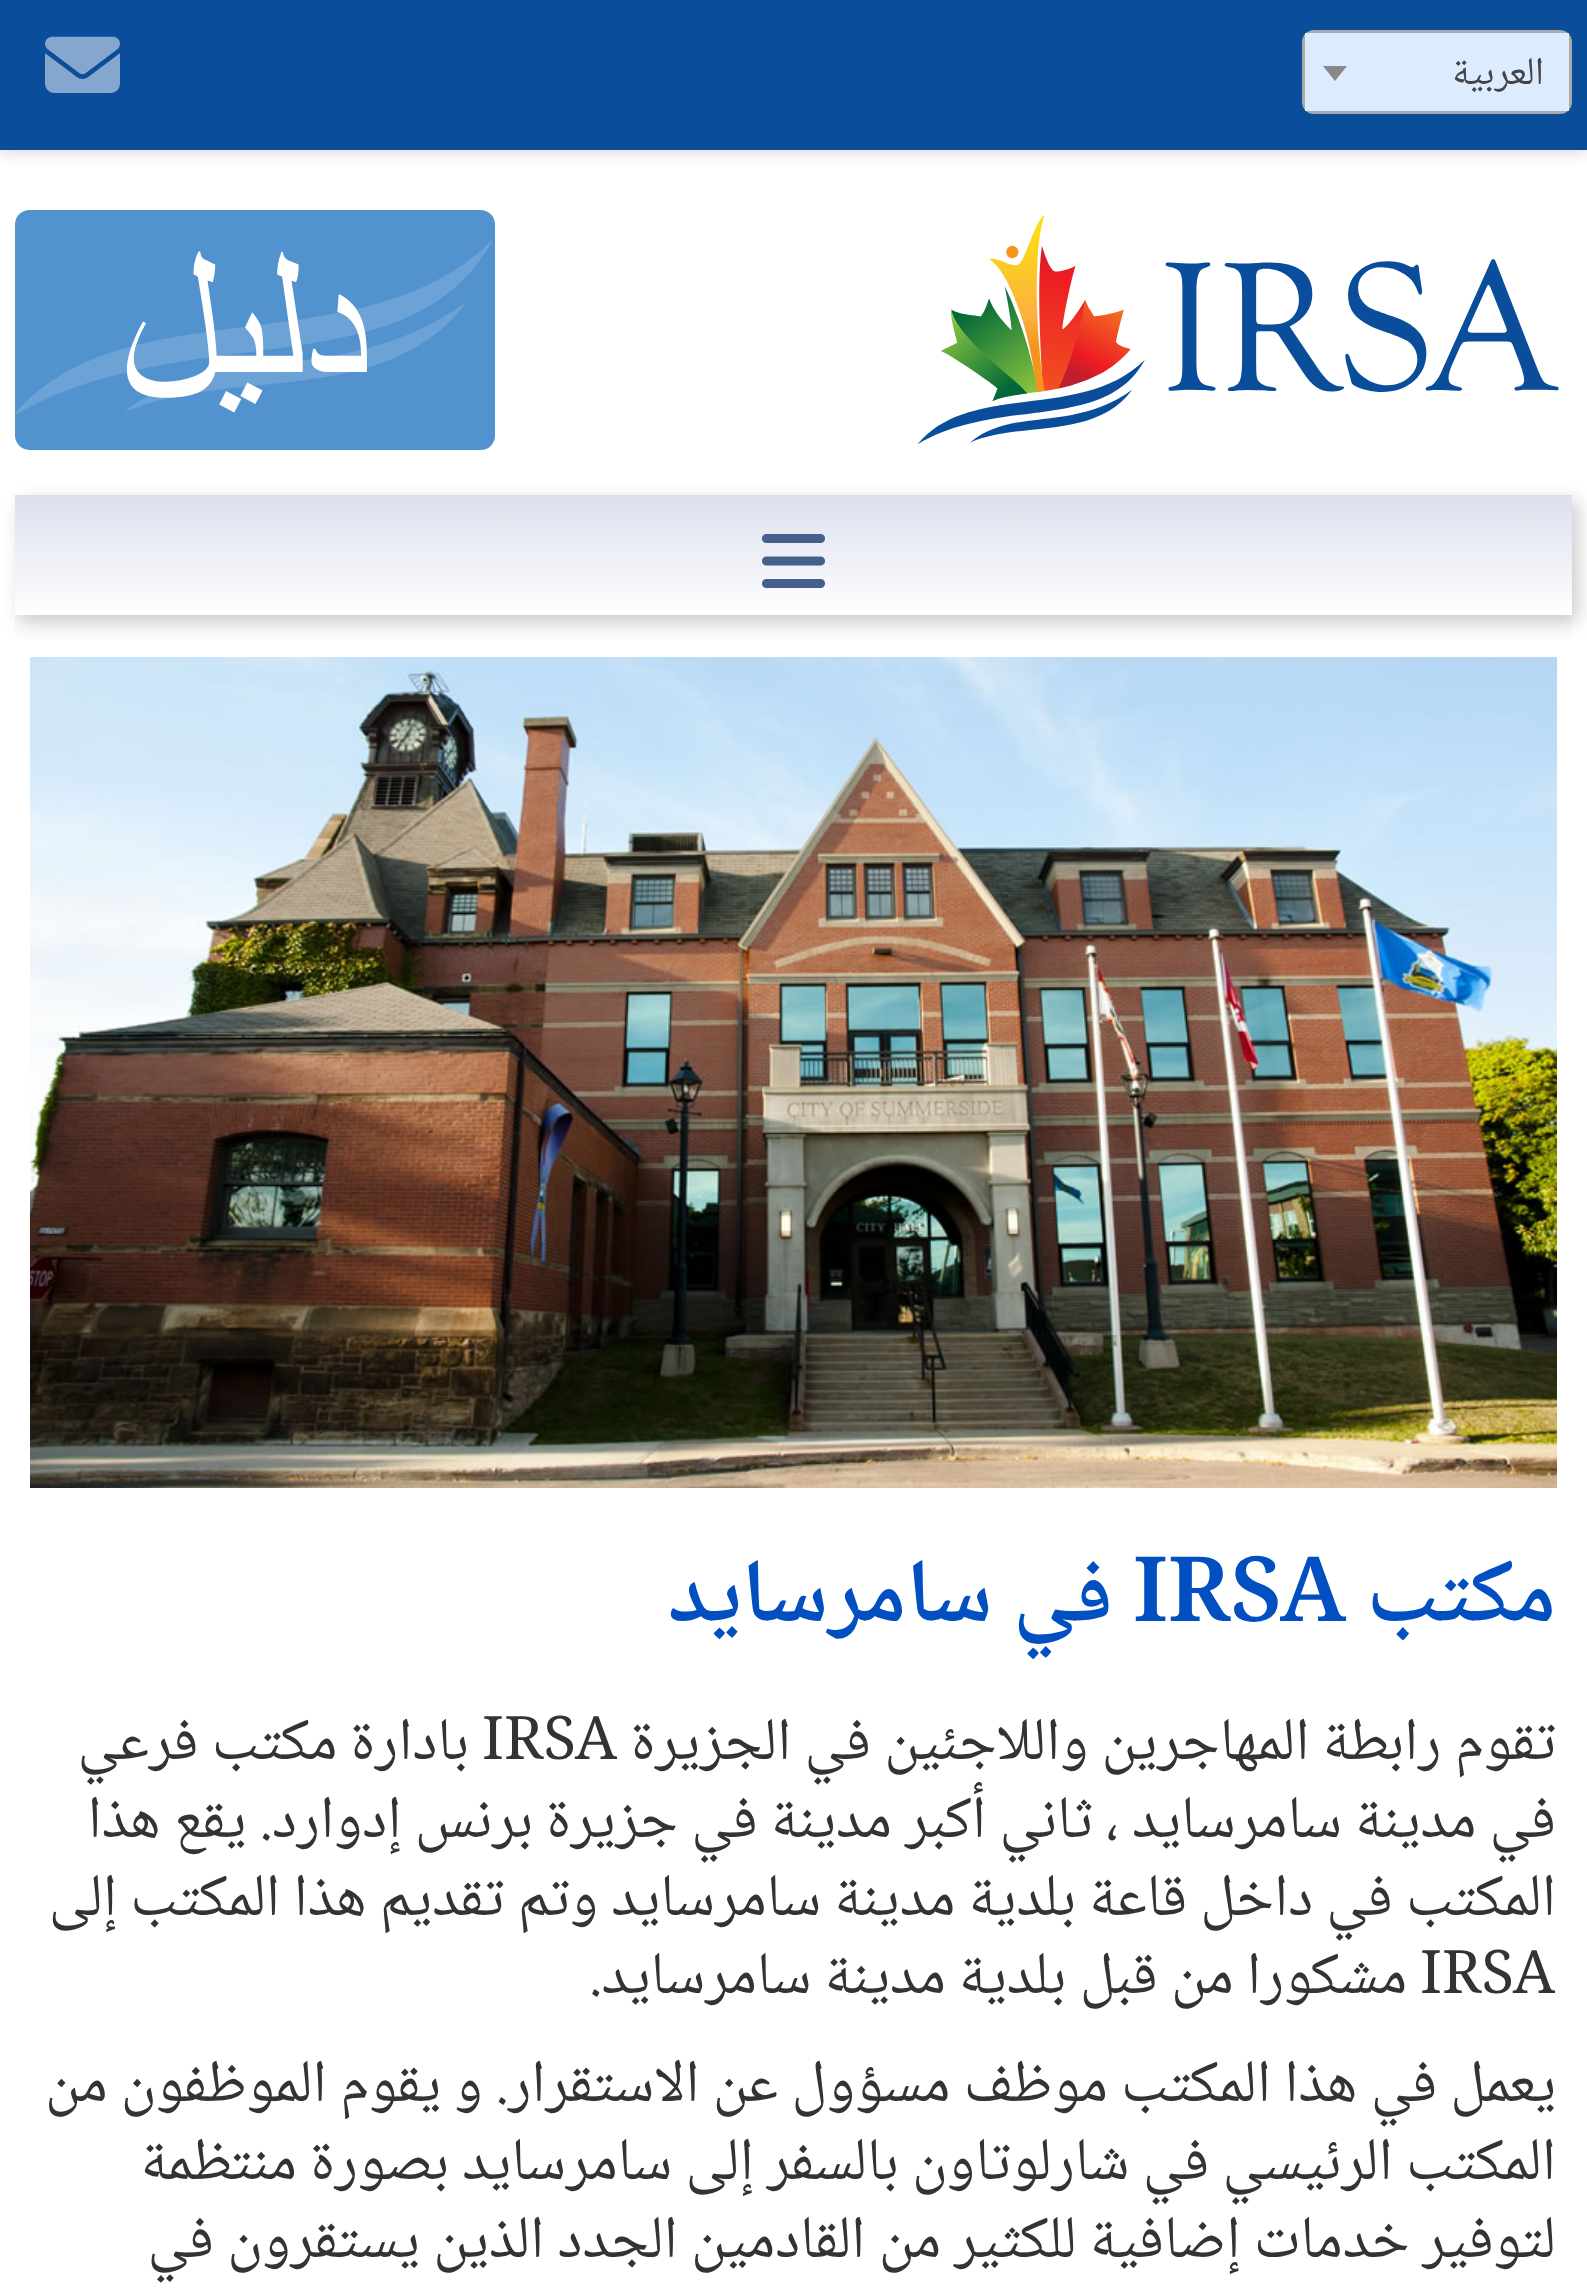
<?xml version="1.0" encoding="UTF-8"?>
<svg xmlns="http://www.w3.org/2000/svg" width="1587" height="2291">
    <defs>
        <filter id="blur1" x="-50%" y="-200%" width="200%" height="500%"><feGaussianBlur stdDeviation="7.5"/></filter>
        <linearGradient id="g1" gradientUnits="userSpaceOnUse" x1="794" y1="495" x2="794" y2="651"><stop offset="0" stop-color="#DCDFED"/><stop offset="1" stop-color="#FFFFFF"/></linearGradient>
        <filter id="blur2" x="-50%" y="-200%" width="200%" height="500%"><feGaussianBlur stdDeviation="9"/></filter>
        <linearGradient id="g2" gradientUnits="userSpaceOnUse" x1="794" y1="495" x2="794" y2="615"><stop offset="0" stop-color="#DCDFED"/><stop offset="1" stop-color="#FFFFFF"/></linearGradient>
    </defs>
    <rect width="100%" height="100%" fill="#FFFFFF"/>
    <rect x="0" y="3" width="1587" height="150" fill="#000000" fill-opacity="0.15" filter="url(#blur1)"/>
    <rect x="0" y="0" width="1587" height="150" fill="#0A4D9B"/>
    <rect x="1303.5" y="31.5" width="267" height="81" rx="10.5" fill="none" stroke="#AAAAAA" stroke-width="3"/>
    <rect x="1305" y="33" width="264" height="78" fill="#DDEBFF"/>
    <text x="1544" y="84" font-family="Noto Naskh Arabic" font-size="39" direction="rtl" fill="#444444">العربية</text>
    <path d="M 1323 66 H 1347 L 1335 81 Z" fill="#888888"/>
    <image x="45" y="36" width="75" height="57" href="img_01.png"/>
    <image x="918" y="215" width="641" height="229" href="img_02.png"/>
    <image x="15" y="210" width="480" height="240" href="img_03.png"/>
    <rect x="15" y="615" width="1557" height="25" fill="url(#g1)"/>
    <rect x="21" y="501" width="1557" height="120" fill="#000000" fill-opacity="0.2" filter="url(#blur2)"/>
    <rect x="15" y="495" width="1557" height="120" fill="url(#g2)"/>
    <image x="762" y="534" width="63" height="54" href="img_04.png"/>
    <image x="30" y="657" width="1527" height="831" href="img_05.png"/>
    <text x="1556" y="1621" font-family="Noto Naskh Arabic" font-size="90" font-weight="600" direction="rtl" fill="#024FC1">مكتب</text>
    <text x="1133" y="1621" font-family="Noto Naskh Arabic" font-size="90" font-weight="600" fill="#024FC1">IRSA</text>
    <text x="1113" y="1621" font-family="Noto Naskh Arabic" font-size="90" font-weight="600" direction="rtl" fill="#024FC1">في سامرسايد</text>
    <text x="1556" y="1759" font-family="Noto Naskh Arabic" font-size="60" direction="rtl" fill="#333333">تقوم رابطة المهاجرين واللاجئين في الجزيرة</text>
    <text x="482" y="1759" font-family="Noto Naskh Arabic" font-size="60" fill="#333333">IRSA</text>
    <text x="469" y="1759" font-family="Noto Naskh Arabic" font-size="60" direction="rtl" fill="#333333">بادارة مكتب فرعي</text>
    <text font-family="Noto Naskh Arabic" font-size="60" direction="rtl" fill="#333333">
        <tspan x="1556" y="1837">في مدينة سامرسايد ، ثاني أكبر مدينة في جزيرة برنس إدوارد. يقع هذا</tspan>
        <tspan x="1556" y="1915">المكتب في داخل قاعة بلدية مدينة سامرسايد وتم تقديم هذا المكتب إلى</tspan>
    </text>
    <text x="1420" y="1993" font-family="Noto Naskh Arabic" font-size="60" fill="#333333">IRSA</text>
    <text x="1407" y="1993" font-family="Noto Naskh Arabic" font-size="60" direction="rtl" fill="#333333">مشكورا من قبل بلدية مدينة سامرسايد.</text>
    <text font-family="Noto Naskh Arabic" font-size="60" direction="rtl" fill="#333333">
        <tspan x="1556" y="2101">يعمل في هذا المكتب موظف مسؤول عن الاستقرار. و يقوم الموظفون من</tspan>
        <tspan x="1556" y="2179">المكتب الرئيسي في شارلوتاون بالسفر إلى سامرسايد بصورة منتظمة</tspan>
        <tspan x="1556" y="2257">لتوفير خدمات إضافية للكثير من القادمين الجدد الذين يستقرون في</tspan>
    </text>
</svg>
